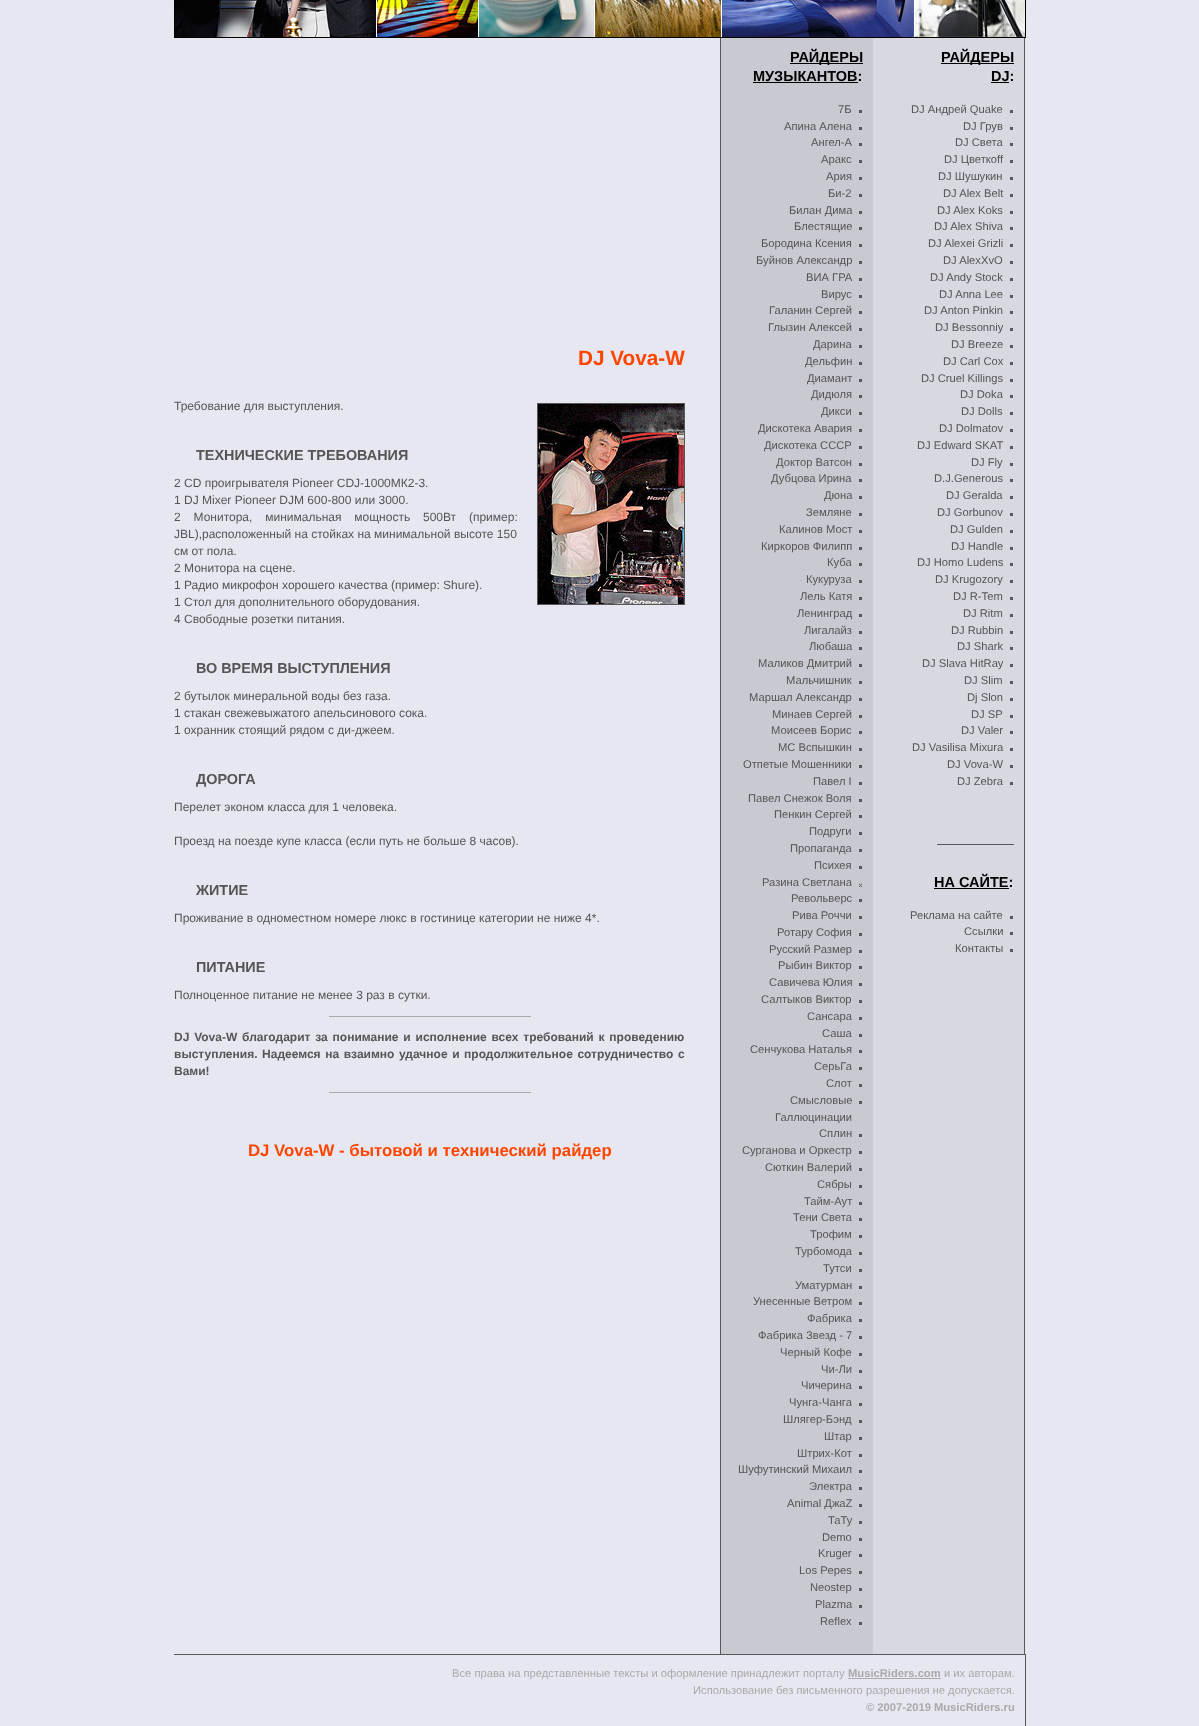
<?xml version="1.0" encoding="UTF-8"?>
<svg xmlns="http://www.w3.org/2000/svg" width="1199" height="1726">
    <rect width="100%" height="100%" fill="#E6E7F0"/>
    <image x="175" y="0" width="850" height="37" href="img_01.png"/>
    <rect x="174.5" y="-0.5" width="851" height="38" fill="none" stroke="#000000"/>
    <text x="578" y="365" font-family="Liberation Sans" font-size="20.75" font-weight="700" fill="#FF4500">DJ Vova-W</text>
    <text x="174" y="410" font-family="Liberation Sans" font-size="12" fill="#555555">Требование для выступления.</text>
    <text x="196" y="460" font-family="Liberation Sans" font-size="14.4" font-weight="700" fill="#555555">ТЕХНИЧЕСКИЕ ТРЕБОВАНИЯ</text>
    <text font-family="Liberation Sans" font-size="12" fill="#555555">
        <tspan x="174" y="487">2 CD проигрывателя Pioneer CDJ-1000МК2-3.</tspan>
        <tspan x="174" y="504">1 DJ Mixer Pioneer DJM 600-800 или 3000.</tspan>
        <tspan x="174" y="521" word-spacing="9.5">2 Монитора, минимальная мощность 500Вт (пример:</tspan>
        <tspan x="174" y="538">JBL),расположенный на стойках на минимальной высоте 150</tspan>
        <tspan x="174" y="555">см от пола.</tspan>
        <tspan x="174" y="572">2 Монитора на сцене.</tspan>
        <tspan x="174" y="589">1 Радио микрофон хорошего качества (пример: Shure).</tspan>
        <tspan x="174" y="606">1 Стол для дополнительного оборудования.</tspan>
        <tspan x="174" y="623">4 Свободные розетки питания.</tspan>
    </text>
    <text x="196" y="673" font-family="Liberation Sans" font-size="14.4" font-weight="700" fill="#555555">ВО ВРЕМЯ ВЫСТУПЛЕНИЯ</text>
    <text font-family="Liberation Sans" font-size="12" fill="#555555">
        <tspan x="174" y="700">2 бутылок минеральной воды без газа.</tspan>
        <tspan x="174" y="717">1 стакан свежевыжатого апельсинового сока.</tspan>
        <tspan x="174" y="734">1 охранник стоящий рядом с ди-джеем.</tspan>
    </text>
    <text x="196" y="784" font-family="Liberation Sans" font-size="14.4" font-weight="700" fill="#555555">ДОРОГА</text>
    <text x="174" y="811" font-family="Liberation Sans" font-size="12" fill="#555555">Перелет эконом класса для 1 человека.</text>
    <text x="174" y="845" font-family="Liberation Sans" font-size="12" fill="#555555">Проезд на поезде купе класса (если путь не больше 8 часов).</text>
    <text x="196" y="895" font-family="Liberation Sans" font-size="14.4" font-weight="700" fill="#555555">ЖИТИЕ</text>
    <text x="174" y="922" font-family="Liberation Sans" font-size="12" fill="#555555">Проживание в одноместном номере люкс в гостинице категории не ниже 4*.</text>
    <text x="196" y="972" font-family="Liberation Sans" font-size="14.4" font-weight="700" fill="#555555">ПИТАНИЕ</text>
    <text x="174" y="999" font-family="Liberation Sans" font-size="12" fill="#555555">Полноценное питание не менее 3 раз в сутки.</text>
    <rect x="329" y="1016" width="202" height="1" fill="#AAAAAA"/>
    <text font-family="Liberation Sans" font-size="12" font-weight="700" fill="#555555">
        <tspan x="174" y="1041" word-spacing="1.5">DJ Vova-W благодарит за понимание и исполнение всех требований к проведению</tspan>
        <tspan x="174" y="1058" word-spacing="1.25">выступления. Надеемся на взаимно удачное и продолжительное сотрудничество с</tspan>
        <tspan x="174" y="1075">Вами!</tspan>
    </text>
    <rect x="329" y="1092" width="202" height="1" fill="#AAAAAA"/>
    <text x="248" y="1156" font-family="Liberation Sans" font-size="16.8" font-weight="700" fill="#FF4500">DJ Vova-W - бытовой и технический райдер</text>
    <rect x="537.5" y="403.5" width="147" height="201" fill="none" stroke="#585858"/>
    <image x="538" y="404" width="146" height="200" href="img_02.png"/>
    <rect x="721" y="38" width="152" height="1616" fill="#C9CAD1"/>
    <rect x="720" y="38" width="1" height="1616" fill="#585858"/>
    <rect x="790" y="63" width="73" height="1" fill="#000000"/>
    <text x="790" y="62" font-family="Liberation Sans" font-size="14.5" font-weight="700" fill="#000000">РАЙДЕРЫ</text>
    <text x="753" y="81" font-family="Liberation Sans" font-size="14.5" font-weight="700" fill="#000000">МУЗЫКАНТОВ:</text>
    <rect x="753" y="82" width="105" height="1" fill="#000000"/>
    <rect x="859" y="110" width="3" height="3" fill="#585858"/>
    <text x="838" y="113" font-family="Liberation Sans" font-size="11.2" fill="#555555">7Б</text>
    <rect x="859" y="127" width="3" height="3" fill="#585858"/>
    <text x="784" y="130" font-family="Liberation Sans" font-size="11.2" fill="#555555">Апина Алена</text>
    <rect x="859" y="143" width="3" height="3" fill="#585858"/>
    <text x="811" y="146" font-family="Liberation Sans" font-size="11.2" fill="#555555">Ангел-А</text>
    <rect x="859" y="160" width="3" height="3" fill="#585858"/>
    <text x="821" y="163" font-family="Liberation Sans" font-size="11.2" fill="#555555">Аракс</text>
    <rect x="859" y="177" width="3" height="3" fill="#585858"/>
    <text x="826" y="180" font-family="Liberation Sans" font-size="11.2" fill="#555555">Ария</text>
    <rect x="859" y="194" width="3" height="3" fill="#585858"/>
    <text x="828" y="197" font-family="Liberation Sans" font-size="11.2" fill="#555555">Би-2</text>
    <rect x="859" y="211" width="3" height="3" fill="#585858"/>
    <text x="789" y="214" font-family="Liberation Sans" font-size="11.2" fill="#555555">Билан Дима</text>
    <rect x="859" y="227" width="3" height="3" fill="#585858"/>
    <text x="794" y="230" font-family="Liberation Sans" font-size="11.2" fill="#555555">Блестящие</text>
    <rect x="859" y="244" width="3" height="3" fill="#585858"/>
    <text x="761" y="247" font-family="Liberation Sans" font-size="11.2" fill="#555555">Бородина Ксения</text>
    <rect x="859" y="261" width="3" height="3" fill="#585858"/>
    <text x="756" y="264" font-family="Liberation Sans" font-size="11.2" fill="#555555">Буйнов Александр</text>
    <rect x="859" y="278" width="3" height="3" fill="#585858"/>
    <text x="806" y="281" font-family="Liberation Sans" font-size="11.2" fill="#555555">ВИА ГРА</text>
    <rect x="859" y="295" width="3" height="3" fill="#585858"/>
    <text x="821" y="298" font-family="Liberation Sans" font-size="11.2" fill="#555555">Вирус</text>
    <rect x="859" y="311" width="3" height="3" fill="#585858"/>
    <text x="769" y="314" font-family="Liberation Sans" font-size="11.2" fill="#555555">Галанин Сергей</text>
    <rect x="859" y="328" width="3" height="3" fill="#585858"/>
    <text x="768" y="331" font-family="Liberation Sans" font-size="11.2" fill="#555555">Глызин Алексей</text>
    <rect x="859" y="345" width="3" height="3" fill="#585858"/>
    <text x="813" y="348" font-family="Liberation Sans" font-size="11.2" fill="#555555">Дарина</text>
    <rect x="859" y="362" width="3" height="3" fill="#585858"/>
    <text x="805" y="365" font-family="Liberation Sans" font-size="11.2" fill="#555555">Дельфин</text>
    <rect x="859" y="379" width="3" height="3" fill="#585858"/>
    <text x="807" y="382" font-family="Liberation Sans" font-size="11.2" fill="#555555">Диамант</text>
    <rect x="859" y="395" width="3" height="3" fill="#585858"/>
    <text x="811" y="398" font-family="Liberation Sans" font-size="11.2" fill="#555555">Дидюля</text>
    <rect x="859" y="412" width="3" height="3" fill="#585858"/>
    <text x="821" y="415" font-family="Liberation Sans" font-size="11.2" fill="#555555">Дикси</text>
    <rect x="859" y="429" width="3" height="3" fill="#585858"/>
    <text x="758" y="432" font-family="Liberation Sans" font-size="11.2" fill="#555555">Дискотека Авария</text>
    <rect x="859" y="446" width="3" height="3" fill="#585858"/>
    <text x="764" y="449" font-family="Liberation Sans" font-size="11.2" fill="#555555">Дискотека СССР</text>
    <rect x="859" y="463" width="3" height="3" fill="#585858"/>
    <text x="776" y="466" font-family="Liberation Sans" font-size="11.2" fill="#555555">Доктор Ватсон</text>
    <rect x="859" y="479" width="3" height="3" fill="#585858"/>
    <text x="771" y="482" font-family="Liberation Sans" font-size="11.2" fill="#555555">Дубцова Ирина</text>
    <rect x="859" y="496" width="3" height="3" fill="#585858"/>
    <text x="824" y="499" font-family="Liberation Sans" font-size="11.2" fill="#555555">Дюна</text>
    <rect x="859" y="513" width="3" height="3" fill="#585858"/>
    <text x="806" y="516" font-family="Liberation Sans" font-size="11.2" fill="#555555">Земляне</text>
    <rect x="859" y="530" width="3" height="3" fill="#585858"/>
    <text x="779" y="533" font-family="Liberation Sans" font-size="11.2" fill="#555555">Калинов Мост</text>
    <rect x="859" y="547" width="3" height="3" fill="#585858"/>
    <text x="761" y="550" font-family="Liberation Sans" font-size="11.2" fill="#555555">Киркоров Филипп</text>
    <rect x="859" y="563" width="3" height="3" fill="#585858"/>
    <text x="827" y="566" font-family="Liberation Sans" font-size="11.2" fill="#555555">Куба</text>
    <rect x="859" y="580" width="3" height="3" fill="#585858"/>
    <text x="806" y="583" font-family="Liberation Sans" font-size="11.2" fill="#555555">Кукуруза</text>
    <rect x="859" y="597" width="3" height="3" fill="#585858"/>
    <text x="800" y="600" font-family="Liberation Sans" font-size="11.2" fill="#555555">Лель Катя</text>
    <rect x="859" y="614" width="3" height="3" fill="#585858"/>
    <text x="797" y="617" font-family="Liberation Sans" font-size="11.2" fill="#555555">Ленинград</text>
    <rect x="859" y="631" width="3" height="3" fill="#585858"/>
    <text x="804" y="634" font-family="Liberation Sans" font-size="11.2" fill="#555555">Лигалайз</text>
    <rect x="859" y="647" width="3" height="3" fill="#585858"/>
    <text x="809" y="650" font-family="Liberation Sans" font-size="11.2" fill="#555555">Любаша</text>
    <rect x="859" y="664" width="3" height="3" fill="#585858"/>
    <text x="758" y="667" font-family="Liberation Sans" font-size="11.2" fill="#555555">Маликов Дмитрий</text>
    <rect x="859" y="681" width="3" height="3" fill="#585858"/>
    <text x="786" y="684" font-family="Liberation Sans" font-size="11.2" fill="#555555">Мальчишник</text>
    <rect x="859" y="698" width="3" height="3" fill="#585858"/>
    <text x="749" y="701" font-family="Liberation Sans" font-size="11.2" fill="#555555">Маршал Александр</text>
    <rect x="859" y="715" width="3" height="3" fill="#585858"/>
    <text x="772" y="718" font-family="Liberation Sans" font-size="11.2" fill="#555555">Минаев Сергей</text>
    <rect x="859" y="731" width="3" height="3" fill="#585858"/>
    <text x="771" y="734" font-family="Liberation Sans" font-size="11.2" fill="#555555">Моисеев Борис</text>
    <rect x="859" y="748" width="3" height="3" fill="#585858"/>
    <text x="778" y="751" font-family="Liberation Sans" font-size="11.2" fill="#555555">МС Вспышкин</text>
    <rect x="859" y="765" width="3" height="3" fill="#585858"/>
    <text x="743" y="768" font-family="Liberation Sans" font-size="11.2" fill="#555555">Отпетые Мошенники</text>
    <rect x="859" y="782" width="3" height="3" fill="#585858"/>
    <text x="813" y="785" font-family="Liberation Sans" font-size="11.2" fill="#555555">Павел I</text>
    <rect x="859" y="799" width="3" height="3" fill="#585858"/>
    <text x="748" y="802" font-family="Liberation Sans" font-size="11.2" fill="#555555">Павел Снежок Воля</text>
    <rect x="859" y="815" width="3" height="3" fill="#585858"/>
    <text x="774" y="818" font-family="Liberation Sans" font-size="11.2" fill="#555555">Пенкин Сергей</text>
    <rect x="859" y="832" width="3" height="3" fill="#585858"/>
    <text x="809" y="835" font-family="Liberation Sans" font-size="11.2" fill="#555555">Подруги</text>
    <rect x="859" y="849" width="3" height="3" fill="#585858"/>
    <text x="790" y="852" font-family="Liberation Sans" font-size="11.2" fill="#555555">Пропаганда</text>
    <rect x="859" y="866" width="3" height="3" fill="#585858"/>
    <text x="814" y="869" font-family="Liberation Sans" font-size="11.2" fill="#555555">Психея</text>
    <image x="859" y="883" width="3" height="4" href="img_03.png"/>
    <text x="762" y="886" font-family="Liberation Sans" font-size="11.2" fill="#555555">Разина Светлана</text>
    <rect x="859" y="899" width="3" height="3" fill="#585858"/>
    <text x="791" y="902" font-family="Liberation Sans" font-size="11.2" fill="#555555">Револьверс</text>
    <rect x="859" y="916" width="3" height="3" fill="#585858"/>
    <text x="792" y="919" font-family="Liberation Sans" font-size="11.2" fill="#555555">Рива Роччи</text>
    <rect x="859" y="933" width="3" height="3" fill="#585858"/>
    <text x="777" y="936" font-family="Liberation Sans" font-size="11.2" fill="#555555">Ротару София</text>
    <rect x="859" y="950" width="3" height="3" fill="#585858"/>
    <text x="769" y="953" font-family="Liberation Sans" font-size="11.2" fill="#555555">Русский Размер</text>
    <rect x="859" y="966" width="3" height="3" fill="#585858"/>
    <text x="778" y="969" font-family="Liberation Sans" font-size="11.2" fill="#555555">Рыбин Виктор</text>
    <rect x="859" y="983" width="3" height="3" fill="#585858"/>
    <text x="769" y="986" font-family="Liberation Sans" font-size="11.2" fill="#555555">Савичева Юлия</text>
    <rect x="859" y="1000" width="3" height="3" fill="#585858"/>
    <text x="761" y="1003" font-family="Liberation Sans" font-size="11.2" fill="#555555">Салтыков Виктор</text>
    <rect x="859" y="1017" width="3" height="3" fill="#585858"/>
    <text x="807" y="1020" font-family="Liberation Sans" font-size="11.2" fill="#555555">Сансара</text>
    <rect x="859" y="1034" width="3" height="3" fill="#585858"/>
    <text x="822" y="1037" font-family="Liberation Sans" font-size="11.2" fill="#555555">Саша</text>
    <rect x="859" y="1050" width="3" height="3" fill="#585858"/>
    <text x="750" y="1053" font-family="Liberation Sans" font-size="11.2" fill="#555555">Сенчукова Наталья</text>
    <rect x="859" y="1067" width="3" height="3" fill="#585858"/>
    <text x="814" y="1070" font-family="Liberation Sans" font-size="11.2" fill="#555555">СерьГа</text>
    <rect x="859" y="1084" width="3" height="3" fill="#585858"/>
    <text x="826" y="1087" font-family="Liberation Sans" font-size="11.2" fill="#555555">Слот</text>
    <rect x="859" y="1101" width="3" height="3" fill="#585858"/>
    <text x="790" y="1104" font-family="Liberation Sans" font-size="11.2" fill="#555555">Смысловые</text>
    <text x="775" y="1121" font-family="Liberation Sans" font-size="11.2" fill="#555555">Галлюцинации</text>
    <rect x="859" y="1134" width="3" height="3" fill="#585858"/>
    <text x="819" y="1137" font-family="Liberation Sans" font-size="11.2" fill="#555555">Сплин</text>
    <rect x="859" y="1151" width="3" height="3" fill="#585858"/>
    <text x="742" y="1154" font-family="Liberation Sans" font-size="11.2" fill="#555555">Сурганова и Оркестр</text>
    <rect x="859" y="1168" width="3" height="3" fill="#585858"/>
    <text x="765" y="1171" font-family="Liberation Sans" font-size="11.2" fill="#555555">Сюткин Валерий</text>
    <rect x="859" y="1185" width="3" height="3" fill="#585858"/>
    <text x="817" y="1188" font-family="Liberation Sans" font-size="11.2" fill="#555555">Сябры</text>
    <rect x="859" y="1202" width="3" height="3" fill="#585858"/>
    <text x="804" y="1205" font-family="Liberation Sans" font-size="11.2" fill="#555555">Тайм-Аут</text>
    <rect x="859" y="1218" width="3" height="3" fill="#585858"/>
    <text x="793" y="1221" font-family="Liberation Sans" font-size="11.2" fill="#555555">Тени Света</text>
    <rect x="859" y="1235" width="3" height="3" fill="#585858"/>
    <text x="810" y="1238" font-family="Liberation Sans" font-size="11.2" fill="#555555">Трофим</text>
    <rect x="859" y="1252" width="3" height="3" fill="#585858"/>
    <text x="795" y="1255" font-family="Liberation Sans" font-size="11.2" fill="#555555">Турбомода</text>
    <rect x="859" y="1269" width="3" height="3" fill="#585858"/>
    <text x="823" y="1272" font-family="Liberation Sans" font-size="11.2" fill="#555555">Тутси</text>
    <rect x="859" y="1286" width="3" height="3" fill="#585858"/>
    <text x="795" y="1289" font-family="Liberation Sans" font-size="11.2" fill="#555555">Уматурман</text>
    <rect x="859" y="1302" width="3" height="3" fill="#585858"/>
    <text x="753" y="1305" font-family="Liberation Sans" font-size="11.2" fill="#555555">Унесенные Ветром</text>
    <rect x="859" y="1319" width="3" height="3" fill="#585858"/>
    <text x="807" y="1322" font-family="Liberation Sans" font-size="11.2" fill="#555555">Фабрика</text>
    <rect x="859" y="1336" width="3" height="3" fill="#585858"/>
    <text x="758" y="1339" font-family="Liberation Sans" font-size="11.2" fill="#555555">Фабрика Звезд - 7</text>
    <rect x="859" y="1353" width="3" height="3" fill="#585858"/>
    <text x="780" y="1356" font-family="Liberation Sans" font-size="11.2" fill="#555555">Черный Кофе</text>
    <rect x="859" y="1370" width="3" height="3" fill="#585858"/>
    <text x="821" y="1373" font-family="Liberation Sans" font-size="11.2" fill="#555555">Чи-Ли</text>
    <rect x="859" y="1386" width="3" height="3" fill="#585858"/>
    <text x="801" y="1389" font-family="Liberation Sans" font-size="11.2" fill="#555555">Чичерина</text>
    <rect x="859" y="1403" width="3" height="3" fill="#585858"/>
    <text x="789" y="1406" font-family="Liberation Sans" font-size="11.2" fill="#555555">Чунга-Чанга</text>
    <rect x="859" y="1420" width="3" height="3" fill="#585858"/>
    <text x="783" y="1423" font-family="Liberation Sans" font-size="11.2" fill="#555555">Шлягер-Бэнд</text>
    <rect x="859" y="1437" width="3" height="3" fill="#585858"/>
    <text x="824" y="1440" font-family="Liberation Sans" font-size="11.2" fill="#555555">Штар</text>
    <rect x="859" y="1454" width="3" height="3" fill="#585858"/>
    <text x="797" y="1457" font-family="Liberation Sans" font-size="11.2" fill="#555555">Штрих-Кот</text>
    <rect x="859" y="1470" width="3" height="3" fill="#585858"/>
    <text x="738" y="1473" font-family="Liberation Sans" font-size="11.2" fill="#555555">Шуфутинский Михаил</text>
    <rect x="859" y="1487" width="3" height="3" fill="#585858"/>
    <text x="809" y="1490" font-family="Liberation Sans" font-size="11.2" fill="#555555">Электра</text>
    <rect x="859" y="1504" width="3" height="3" fill="#585858"/>
    <text x="787" y="1507" font-family="Liberation Sans" font-size="11.2" fill="#555555">Animal ДжаZ</text>
    <rect x="859" y="1521" width="3" height="3" fill="#585858"/>
    <text x="828" y="1524" font-family="Liberation Sans" font-size="11.2" fill="#555555">ТаТу</text>
    <rect x="859" y="1538" width="3" height="3" fill="#585858"/>
    <text x="822" y="1541" font-family="Liberation Sans" font-size="11.2" fill="#555555">Demo</text>
    <rect x="859" y="1554" width="3" height="3" fill="#585858"/>
    <text x="818" y="1557" font-family="Liberation Sans" font-size="11.2" fill="#555555">Kruger</text>
    <rect x="859" y="1571" width="3" height="3" fill="#585858"/>
    <text x="799" y="1574" font-family="Liberation Sans" font-size="11.2" fill="#555555">Los Pepes</text>
    <rect x="859" y="1588" width="3" height="3" fill="#585858"/>
    <text x="810" y="1591" font-family="Liberation Sans" font-size="11.2" fill="#555555">Neostep</text>
    <rect x="859" y="1605" width="3" height="3" fill="#585858"/>
    <text x="815" y="1608" font-family="Liberation Sans" font-size="11.2" fill="#555555">Plazma</text>
    <rect x="859" y="1622" width="3" height="3" fill="#585858"/>
    <text x="820" y="1625" font-family="Liberation Sans" font-size="11.2" fill="#555555">Reflex</text>
    <rect x="873" y="38" width="151" height="1616" fill="#D7D8E0"/>
    <rect x="1024" y="38" width="1" height="1616" fill="#585858"/>
    <rect x="941" y="63" width="73" height="1" fill="#000000"/>
    <text x="941" y="62" font-family="Liberation Sans" font-size="14.5" font-weight="700" fill="#000000">РАЙДЕРЫ</text>
    <text x="991" y="81" font-family="Liberation Sans" font-size="14.5" font-weight="700" fill="#000000">DJ:</text>
    <rect x="991" y="82" width="18" height="1" fill="#000000"/>
    <rect x="1010" y="110" width="3" height="3" fill="#585858"/>
    <text x="911" y="113" font-family="Liberation Sans" font-size="11.2" fill="#555555">DJ Андрей Quake</text>
    <rect x="1010" y="127" width="3" height="3" fill="#585858"/>
    <text x="963" y="130" font-family="Liberation Sans" font-size="11.2" fill="#555555">DJ Грув</text>
    <rect x="1010" y="143" width="3" height="3" fill="#585858"/>
    <text x="955" y="146" font-family="Liberation Sans" font-size="11.2" fill="#555555">DJ Света</text>
    <rect x="1010" y="160" width="3" height="3" fill="#585858"/>
    <text x="944" y="163" font-family="Liberation Sans" font-size="11.2" fill="#555555">DJ Цветкоff</text>
    <rect x="1010" y="177" width="3" height="3" fill="#585858"/>
    <text x="938" y="180" font-family="Liberation Sans" font-size="11.2" fill="#555555">DJ Шушукин</text>
    <rect x="1010" y="194" width="3" height="3" fill="#585858"/>
    <text x="943" y="197" font-family="Liberation Sans" font-size="11.2" fill="#555555">DJ Alex Belt</text>
    <rect x="1010" y="211" width="3" height="3" fill="#585858"/>
    <text x="937" y="214" font-family="Liberation Sans" font-size="11.2" fill="#555555">DJ Alex Koks</text>
    <rect x="1010" y="227" width="3" height="3" fill="#585858"/>
    <text x="934" y="230" font-family="Liberation Sans" font-size="11.2" fill="#555555">DJ Alex Shiva</text>
    <rect x="1010" y="244" width="3" height="3" fill="#585858"/>
    <text x="928" y="247" font-family="Liberation Sans" font-size="11.2" fill="#555555">DJ Alexei Grizli</text>
    <rect x="1010" y="261" width="3" height="3" fill="#585858"/>
    <text x="943" y="264" font-family="Liberation Sans" font-size="11.2" fill="#555555">DJ AlexXvO</text>
    <rect x="1010" y="278" width="3" height="3" fill="#585858"/>
    <text x="930" y="281" font-family="Liberation Sans" font-size="11.2" fill="#555555">DJ Andy Stock</text>
    <rect x="1010" y="295" width="3" height="3" fill="#585858"/>
    <text x="939" y="298" font-family="Liberation Sans" font-size="11.2" fill="#555555">DJ Anna Lee</text>
    <rect x="1010" y="311" width="3" height="3" fill="#585858"/>
    <text x="924" y="314" font-family="Liberation Sans" font-size="11.2" fill="#555555">DJ Anton Pinkin</text>
    <rect x="1010" y="328" width="3" height="3" fill="#585858"/>
    <text x="935" y="331" font-family="Liberation Sans" font-size="11.2" fill="#555555">DJ Bessonniy</text>
    <rect x="1010" y="345" width="3" height="3" fill="#585858"/>
    <text x="951" y="348" font-family="Liberation Sans" font-size="11.2" fill="#555555">DJ Breeze</text>
    <rect x="1010" y="362" width="3" height="3" fill="#585858"/>
    <text x="943" y="365" font-family="Liberation Sans" font-size="11.2" fill="#555555">DJ Carl Cox</text>
    <rect x="1010" y="379" width="3" height="3" fill="#585858"/>
    <text x="921" y="382" font-family="Liberation Sans" font-size="11.2" fill="#555555">DJ Cruel Killings</text>
    <rect x="1010" y="395" width="3" height="3" fill="#585858"/>
    <text x="960" y="398" font-family="Liberation Sans" font-size="11.2" fill="#555555">DJ Doka</text>
    <rect x="1010" y="412" width="3" height="3" fill="#585858"/>
    <text x="961" y="415" font-family="Liberation Sans" font-size="11.2" fill="#555555">DJ Dolls</text>
    <rect x="1010" y="429" width="3" height="3" fill="#585858"/>
    <text x="939" y="432" font-family="Liberation Sans" font-size="11.2" fill="#555555">DJ Dolmatov</text>
    <rect x="1010" y="446" width="3" height="3" fill="#585858"/>
    <text x="917" y="449" font-family="Liberation Sans" font-size="11.2" fill="#555555">DJ Edward SKAT</text>
    <rect x="1010" y="463" width="3" height="3" fill="#585858"/>
    <text x="971" y="466" font-family="Liberation Sans" font-size="11.2" fill="#555555">DJ Fly</text>
    <rect x="1010" y="479" width="3" height="3" fill="#585858"/>
    <text x="934" y="482" font-family="Liberation Sans" font-size="11.2" fill="#555555">D.J.Generous</text>
    <rect x="1010" y="496" width="3" height="3" fill="#585858"/>
    <text x="946" y="499" font-family="Liberation Sans" font-size="11.2" fill="#555555">DJ Geralda</text>
    <rect x="1010" y="513" width="3" height="3" fill="#585858"/>
    <text x="937" y="516" font-family="Liberation Sans" font-size="11.2" fill="#555555">DJ Gorbunov</text>
    <rect x="1010" y="530" width="3" height="3" fill="#585858"/>
    <text x="950" y="533" font-family="Liberation Sans" font-size="11.2" fill="#555555">DJ Gulden</text>
    <rect x="1010" y="547" width="3" height="3" fill="#585858"/>
    <text x="951" y="550" font-family="Liberation Sans" font-size="11.2" fill="#555555">DJ Handle</text>
    <rect x="1010" y="563" width="3" height="3" fill="#585858"/>
    <text x="917" y="566" font-family="Liberation Sans" font-size="11.2" fill="#555555">DJ Homo Ludens</text>
    <rect x="1010" y="580" width="3" height="3" fill="#585858"/>
    <text x="935" y="583" font-family="Liberation Sans" font-size="11.2" fill="#555555">DJ Krugozory</text>
    <rect x="1010" y="597" width="3" height="3" fill="#585858"/>
    <text x="953" y="600" font-family="Liberation Sans" font-size="11.2" fill="#555555">DJ R-Tem</text>
    <rect x="1010" y="614" width="3" height="3" fill="#585858"/>
    <text x="963" y="617" font-family="Liberation Sans" font-size="11.2" fill="#555555">DJ Ritm</text>
    <rect x="1010" y="631" width="3" height="3" fill="#585858"/>
    <text x="951" y="634" font-family="Liberation Sans" font-size="11.2" fill="#555555">DJ Rubbin</text>
    <rect x="1010" y="647" width="3" height="3" fill="#585858"/>
    <text x="957" y="650" font-family="Liberation Sans" font-size="11.2" fill="#555555">DJ Shark</text>
    <rect x="1010" y="664" width="3" height="3" fill="#585858"/>
    <text x="922" y="667" font-family="Liberation Sans" font-size="11.2" fill="#555555">DJ Slava HitRay</text>
    <rect x="1010" y="681" width="3" height="3" fill="#585858"/>
    <text x="964" y="684" font-family="Liberation Sans" font-size="11.2" fill="#555555">DJ Slim</text>
    <rect x="1010" y="698" width="3" height="3" fill="#585858"/>
    <text x="967" y="701" font-family="Liberation Sans" font-size="11.2" fill="#555555">Dj Slon</text>
    <rect x="1010" y="715" width="3" height="3" fill="#585858"/>
    <text x="971" y="718" font-family="Liberation Sans" font-size="11.2" fill="#555555">DJ SP</text>
    <rect x="1010" y="731" width="3" height="3" fill="#585858"/>
    <text x="961" y="734" font-family="Liberation Sans" font-size="11.2" fill="#555555">DJ Valer</text>
    <rect x="1010" y="748" width="3" height="3" fill="#585858"/>
    <text x="912" y="751" font-family="Liberation Sans" font-size="11.2" fill="#555555">DJ Vasilisa Mixura</text>
    <rect x="1010" y="765" width="3" height="3" fill="#585858"/>
    <text x="947" y="768" font-family="Liberation Sans" font-size="11.2" fill="#555555">DJ Vova-W</text>
    <rect x="1010" y="782" width="3" height="3" fill="#585858"/>
    <text x="957" y="785" font-family="Liberation Sans" font-size="11.2" fill="#555555">DJ Zebra</text>
    <rect x="937" y="844" width="77" height="1" fill="#585858"/>
    <text x="934" y="887" font-family="Liberation Sans" font-size="14.5" font-weight="700" fill="#000000">НА САЙТЕ:</text>
    <rect x="934" y="888" width="75" height="1" fill="#000000"/>
    <rect x="1010" y="916" width="3" height="3" fill="#585858"/>
    <text x="910" y="919" font-family="Liberation Sans" font-size="11.2" fill="#555555">Реклама на сайте</text>
    <rect x="1010" y="932" width="3" height="3" fill="#585858"/>
    <text x="964" y="935" font-family="Liberation Sans" font-size="11.2" fill="#555555">Ссылки</text>
    <rect x="1010" y="949" width="3" height="3" fill="#585858"/>
    <text x="955" y="952" font-family="Liberation Sans" font-size="11.2" fill="#555555">Контакты</text>
    <rect x="174" y="1654" width="852" height="1" fill="#585858"/>
    <rect x="1025" y="1654" width="1" height="72" fill="#585858"/>
    <text x="452" y="1677" font-family="Liberation Sans" font-size="11.2" fill="#AAAAAA">Все права на представленные тексты и оформление принадлежит порталу</text>
    <text x="848" y="1677" font-family="Liberation Sans" font-size="11.2" font-weight="700" fill="#AAAAAA">MusicRiders.com</text>
    <rect x="848" y="1678" width="93" height="1" fill="#AAAAAA"/>
    <text x="944" y="1677" font-family="Liberation Sans" font-size="11.2" fill="#AAAAAA">и их авторам.</text>
    <text x="693" y="1694" font-family="Liberation Sans" font-size="11.2" fill="#AAAAAA">Использование без письменного разрешения не допускается.</text>
    <text x="866" y="1711" font-family="Liberation Sans" font-size="11.2" font-weight="700" fill="#AAAAAA">© 2007-2019 MusicRiders.ru</text>
</svg>
